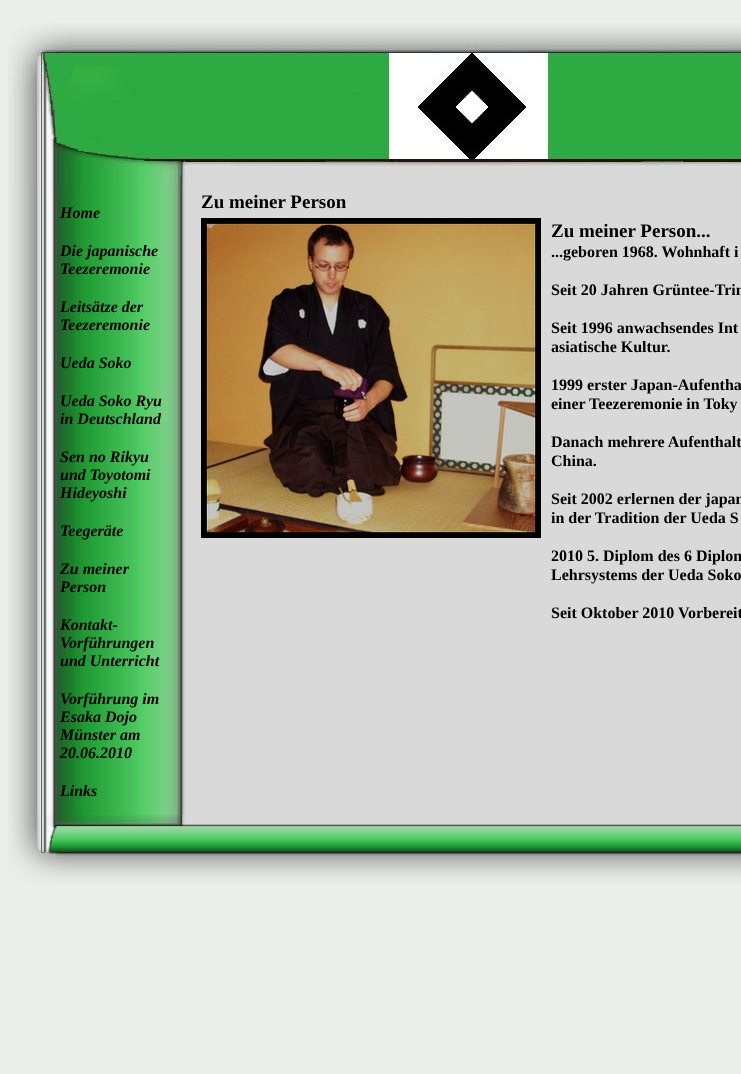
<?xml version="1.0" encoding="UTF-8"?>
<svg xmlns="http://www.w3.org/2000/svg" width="741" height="1074">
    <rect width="100%" height="100%" fill="#ECEEEB"/>
    <image x="8" y="23" width="733" height="165" href="img_01.png"/>
    <image x="8" y="188" width="733" height="627" href="img_02.png"/>
    <text x="60" y="218" font-family="Liberation Serif" font-size="16" font-weight="700" font-style="italic" fill="#000000">Home</text>
    <text font-family="Liberation Serif" font-size="16" font-weight="700" font-style="italic" fill="#000000">
        <tspan x="60" y="256">Die japanische</tspan>
        <tspan x="60" y="274">Teezeremonie</tspan>
    </text>
    <text font-family="Liberation Serif" font-size="16" font-weight="700" font-style="italic" fill="#000000">
        <tspan x="60" y="312">Leitsätze der</tspan>
        <tspan x="60" y="330">Teezeremonie</tspan>
    </text>
    <text x="60" y="368" font-family="Liberation Serif" font-size="16" font-weight="700" font-style="italic" fill="#000000">Ueda Soko</text>
    <text font-family="Liberation Serif" font-size="16" font-weight="700" font-style="italic" fill="#000000">
        <tspan x="60" y="406">Ueda Soko Ryu</tspan>
        <tspan x="60" y="424">in Deutschland</tspan>
    </text>
    <text font-family="Liberation Serif" font-size="16" font-weight="700" font-style="italic" fill="#000000">
        <tspan x="60" y="462">Sen no Rikyu</tspan>
        <tspan x="60" y="480">und Toyotomi</tspan>
        <tspan x="60" y="498">Hideyoshi</tspan>
    </text>
    <text x="60" y="536" font-family="Liberation Serif" font-size="16" font-weight="700" font-style="italic" fill="#000000">Teegeräte</text>
    <text font-family="Liberation Serif" font-size="16" font-weight="700" font-style="italic" fill="#000000">
        <tspan x="60" y="574">Zu meiner</tspan>
        <tspan x="60" y="592">Person</tspan>
    </text>
    <text font-family="Liberation Serif" font-size="16" font-weight="700" font-style="italic" fill="#000000">
        <tspan x="60" y="630">Kontakt-</tspan>
        <tspan x="60" y="648">Vorführungen</tspan>
        <tspan x="60" y="666">und Unterricht</tspan>
    </text>
    <text font-family="Liberation Serif" font-size="16" font-weight="700" font-style="italic" fill="#000000">
        <tspan x="60" y="704">Vorführung im</tspan>
        <tspan x="60" y="722">Esaka Dojo</tspan>
        <tspan x="60" y="740">Münster am</tspan>
        <tspan x="60" y="758">20.06.2010</tspan>
    </text>
    <text x="60" y="796" font-family="Liberation Serif" font-size="16" font-weight="700" font-style="italic" fill="#000000">Links</text>
    <text x="201" y="208" font-family="Liberation Serif" font-size="19" font-weight="700" fill="#000000">Zu meiner Person</text>
    <image x="201" y="218" width="340" height="320" href="img_03.png"/>
    <text x="551" y="237" font-family="Liberation Serif" font-size="19" font-weight="700" fill="#000000">Zu meiner Person...</text>
    <text x="551" y="257" font-family="Liberation Serif" font-size="16" font-weight="700" fill="#000000">...geboren 1968. Wohnhaft i</text>
    <text x="551" y="295" font-family="Liberation Serif" font-size="16" font-weight="700" fill="#000000">Seit 20 Jahren Grüntee-Trin</text>
    <text font-family="Liberation Serif" font-size="16" font-weight="700" fill="#000000">
        <tspan x="551" y="333">Seit 1996 anwachsendes Int</tspan>
        <tspan x="551" y="352">asiatische Kultur.</tspan>
    </text>
    <text font-family="Liberation Serif" font-size="16" font-weight="700" fill="#000000">
        <tspan x="551" y="390">1999 erster Japan-Aufentha</tspan>
        <tspan x="551" y="409">einer Teezeremonie in Toky</tspan>
    </text>
    <text font-family="Liberation Serif" font-size="16" font-weight="700" fill="#000000">
        <tspan x="551" y="447">Danach mehrere Aufenthalt</tspan>
        <tspan x="551" y="466">China.</tspan>
    </text>
    <text font-family="Liberation Serif" font-size="16" font-weight="700" fill="#000000">
        <tspan x="551" y="504">Seit 2002 erlernen der japan</tspan>
        <tspan x="551" y="523">in der Tradition der Ueda S</tspan>
    </text>
    <text font-family="Liberation Serif" font-size="16" font-weight="700" fill="#000000">
        <tspan x="551" y="561">2010 5. Diplom des 6 Diplom</tspan>
        <tspan x="551" y="580">Lehrsystems der Ueda Soko</tspan>
    </text>
    <text x="551" y="618" font-family="Liberation Serif" font-size="16" font-weight="700" fill="#000000">Seit Oktober 2010 Vorbereit</text>
    <image x="8" y="815" width="733" height="75" href="img_04.png"/>
</svg>
